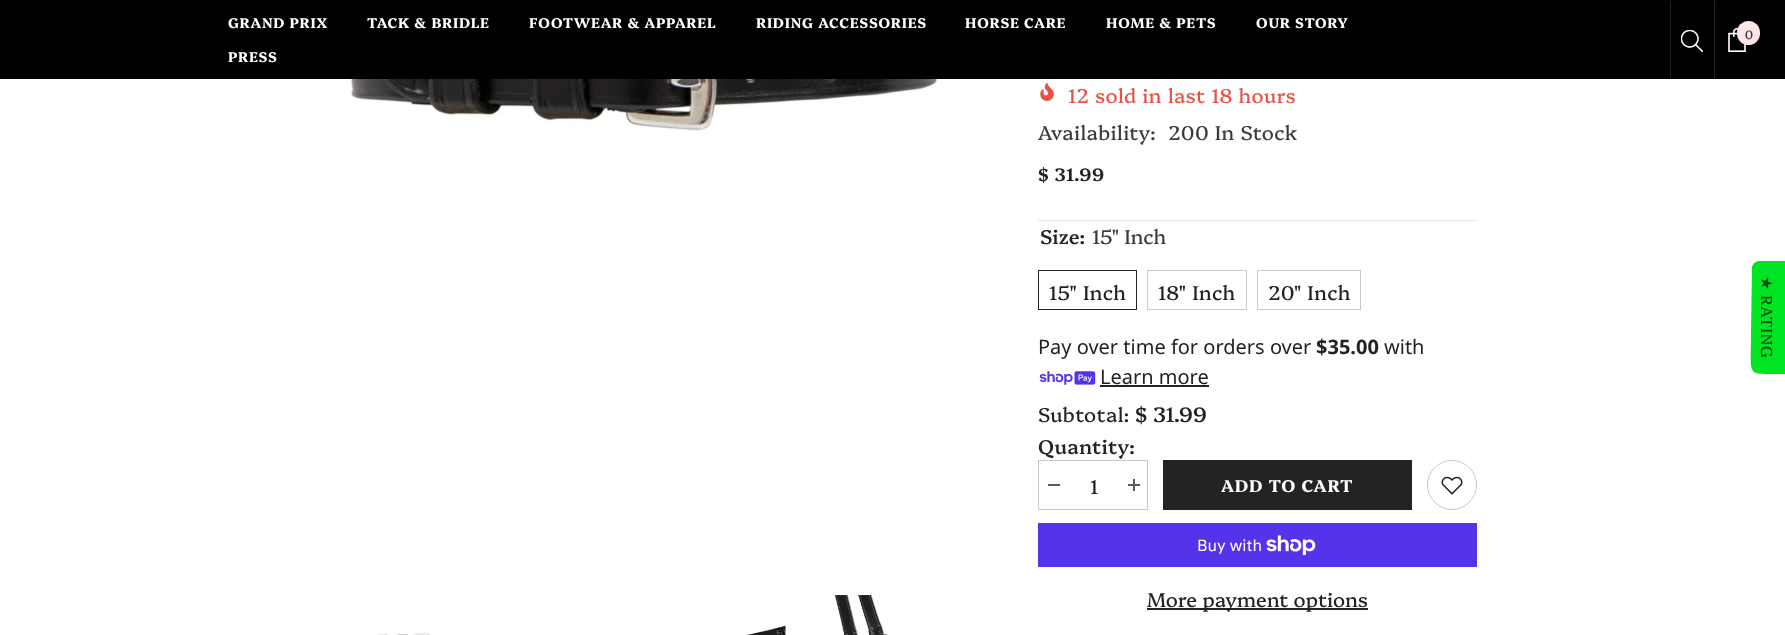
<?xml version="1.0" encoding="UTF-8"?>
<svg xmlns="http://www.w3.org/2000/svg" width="1785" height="635">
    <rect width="100%" height="100%" fill="#FFFFFF"/>
    <rect x="0" y="0" width="1785" height="79" fill="#000000"/>
    <text x="228" y="28" font-family="Platypi" font-size="14" font-weight="700" letter-spacing="0.75" fill="#FFFFFF">GRAND PRIX</text>
    <text x="367" y="28" font-family="Platypi" font-size="14" font-weight="700" letter-spacing="0.75" fill="#FFFFFF">TACK &amp; BRIDLE</text>
    <text x="529" y="28" font-family="Platypi" font-size="14" font-weight="700" letter-spacing="0.75" fill="#FFFFFF">FOOTWEAR &amp; APPAREL</text>
    <text x="756" y="28" font-family="Platypi" font-size="14" font-weight="700" letter-spacing="0.75" fill="#FFFFFF">RIDING ACCESSORIES</text>
    <text x="965" y="28" font-family="Platypi" font-size="14" font-weight="700" letter-spacing="0.75" fill="#FFFFFF">HORSE CARE</text>
    <text x="1106" y="28" font-family="Platypi" font-size="14" font-weight="700" letter-spacing="0.75" fill="#FFFFFF">HOME &amp; PETS</text>
    <text x="1256" y="28" font-family="Platypi" font-size="14" font-weight="700" letter-spacing="0.75" fill="#FFFFFF">OUR STORY</text>
    <text x="228" y="62" font-family="Platypi" font-size="14" font-weight="700" letter-spacing="0.75" fill="#FFFFFF">PRESS</text>
    <rect x="1670" y="1" width="1" height="78" fill="#232323"/>
    <image x="1681" y="30" width="22" height="22" href="img_01.png"/>
    <rect x="1714" y="1" width="1" height="78" fill="#232323"/>
    <image x="1728" y="28" width="18" height="24" href="img_02.png"/>
    <rect x="1737" y="21" width="23" height="24" rx="11.5" fill="#FFE5E8"/>
    <text x="1745" y="39" font-family="Platypi" font-size="12" fill="#323232">0</text>
    <image x="349" y="79" width="589" height="52" href="img_03.png"/>
    <image x="378" y="632" width="52" height="3" href="img_04.png"/>
    <image x="747" y="625" width="39" height="10" href="img_05.png"/>
    <image x="834" y="595" width="54" height="40" href="img_06.png"/>
    <image x="1040" y="83" width="14" height="18" href="img_07.png"/>
    <text x="1068" y="103" font-family="Platypi" font-size="20" letter-spacing="0.4" fill="#E95144">12 sold in last 18 hours</text>
    <text x="1038" y="140" font-family="Platypi" font-size="20" letter-spacing="0.4" fill="#3C3C3C">Availability:</text>
    <text x="1168" y="140" font-family="Platypi" font-size="20" letter-spacing="0.4" fill="#3C3C3C">200 In Stock</text>
    <text x="1038" y="181" font-family="Platypi" font-size="18" font-weight="600" letter-spacing="0.5" fill="#232323">$ 31.99</text>
    <rect x="1038" y="220" width="439" height="1" fill="#E6E6E6"/>
    <text x="1040" y="244" font-family="Platypi" font-size="20" font-weight="500" fill="#232323">Size:</text>
    <text x="1092" y="244" font-family="Platypi" font-size="20" fill="#3C3C3C">15" Inch</text>
    <rect x="1038.5" y="270.5" width="98" height="39" fill="none" stroke="#232323"/>
    <text x="1049" y="300" font-family="Platypi" font-size="20" letter-spacing="0.4" fill="#232323">15" Inch</text>
    <rect x="1147.5" y="270.5" width="99" height="39" fill="none" stroke="#CBCBCB"/>
    <text x="1158" y="300" font-family="Platypi" font-size="20" letter-spacing="0.4" fill="#232323">18" Inch</text>
    <rect x="1257.5" y="270.5" width="103" height="39" fill="none" stroke="#CBCBCB"/>
    <text x="1268" y="300" font-family="Platypi" font-size="20" letter-spacing="0.4" fill="#232323">20" Inch</text>
    <text x="1038" y="354" font-family="Noto Sans" font-size="20" fill="#232323">Pay over time for orders over</text>
    <text x="1316" y="354" font-family="Noto Sans" font-size="20" font-weight="700" fill="#232323">$35.00</text>
    <text x="1384" y="354" font-family="Noto Sans" font-size="20" fill="#232323">with</text>
    <image x="1039" y="371" width="57" height="14" href="img_08.png"/>
    <text x="1100" y="384" font-family="Noto Sans" font-size="20" fill="#232323">Learn more</text>
    <rect x="1100" y="385" width="109" height="2" fill="#232323"/>
    <text x="1038" y="422" font-family="Platypi" font-size="20" letter-spacing="0.4" fill="#232323">Subtotal:</text>
    <text x="1135" y="422" font-family="Platypi" font-size="21" font-weight="500" fill="#232323">$ 31.99</text>
    <text x="1038" y="454" font-family="Platypi" font-size="20" font-weight="500" letter-spacing="0.4" fill="#232323">Quantity:</text>
    <rect x="1038.5" y="460.5" width="109" height="49" fill="none" stroke="#C7C7C7"/>
    <rect x="1048" y="484" width="12" height="2" fill="#5A5A5A"/>
    <text x="1090" y="494" font-family="Platypi" font-size="20" letter-spacing="0.4" fill="#232323">1</text>
    <rect x="1128" y="484" width="12" height="2" fill="#5A5A5A"/>
    <rect x="1133" y="479" width="2" height="12" fill="#5A5A5A"/>
    <rect x="1163" y="460" width="249" height="50" fill="#232323"/>
    <text x="1221" y="492" font-family="Platypi" font-size="17" font-weight="700" letter-spacing="0.8" fill="#FFFFFF">ADD TO CART</text>
    <circle cx="1452" cy="485" r="24.5" fill="none" stroke="#C7C7C7"/>
    <image x="1441" y="476" width="22" height="19" href="img_09.png"/>
    <rect x="1038" y="523" width="439" height="44" fill="#5433EB"/>
    <text x="1197" y="551" font-family="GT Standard" font-size="16" fill="#FFFFFF">Buy with</text>
    <image x="1266" y="535" width="50" height="20" href="img_10.png"/>
    <rect x="1147" y="608" width="221" height="2" fill="#232323"/>
    <text x="1147" y="607" font-family="Platypi" font-size="20" fill="#232323">More payment options</text>
    <path d="M 1785 261 V 374 C 1745 374 1751 379 1751 334 L 1752 268 C 1752 264 1756 261 1759 261 Z" fill="#00E421"/>
    <text x="1761" y="276" transform="rotate(90 1761 276)" font-family="DejaVu Sans" font-size="16" letter-spacing="0.4" fill="#004E0B">★</text>
    <text x="1761" y="295" transform="rotate(90 1761 295)" font-family="Platypi" font-size="16" letter-spacing="0.4" fill="#004E0B">RATING</text>
</svg>
